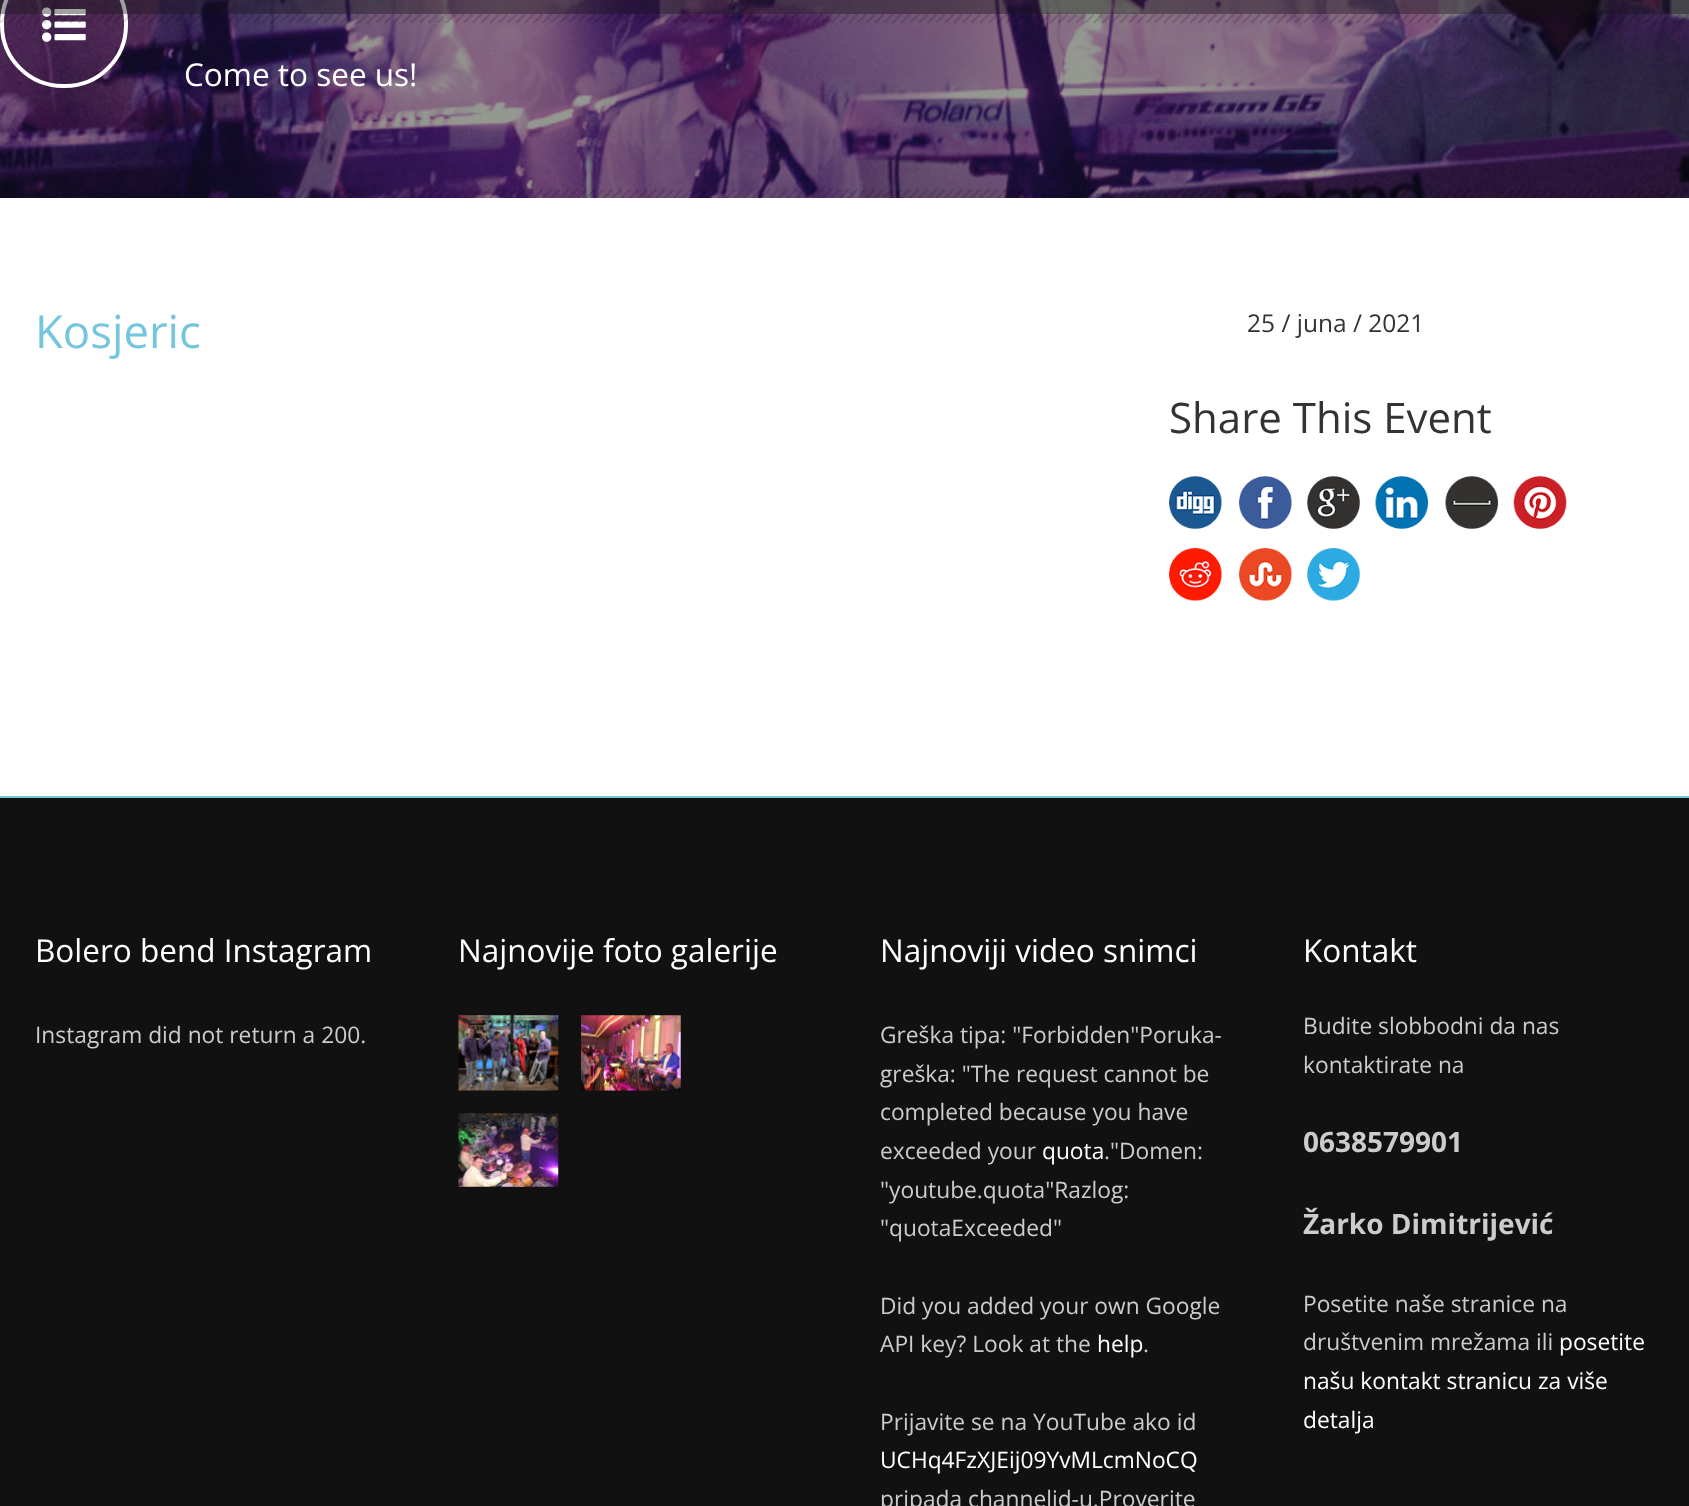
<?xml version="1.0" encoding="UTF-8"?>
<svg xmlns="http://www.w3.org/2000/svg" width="1689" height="1506">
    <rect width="100%" height="100%" fill="#111111"/>
    <image x="0" y="0" width="1689" height="198" href="img_02.png"/>
    <rect x="2" y="-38" width="124" height="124" rx="61" fill="none" stroke="#FFFFFF" stroke-width="4"/>
    <image x="42" y="7" width="44" height="35" href="img_03.png"/>
    <rect x="0" y="0" width="1689" height="14" fill="#111111" fill-opacity="0.4"/>
    <image x="0" y="14" width="1689" height="9" href="img_01.png"/>
    <text x="184" y="86" font-family="Open Sans" font-size="31.5" fill="#FFFFFF">Come to see us!</text>
    <image x="0" y="189" width="1689" height="9" href="img_04.png"/>
    <rect x="0" y="198" width="1689" height="598" fill="#FFFFFF"/>
    <text x="35" y="348" font-family="Open Sans" font-size="45.5" fill="#74C6DE">Kosjeric</text>
    <text x="1247" y="332" font-family="Open Sans" font-size="24.5" fill="#333333">25 / juna / 2021</text>
    <text x="1169" y="433" font-family="Open Sans" font-size="42" fill="#333333">Share This Event</text>
    <image x="1169" y="476" width="53" height="53" href="img_05.png"/>
    <image x="1239" y="476" width="53" height="53" href="img_06.png"/>
    <image x="1307" y="476" width="53" height="53" href="img_07.png"/>
    <image x="1375" y="476" width="53" height="53" href="img_08.png"/>
    <image x="1445" y="476" width="53" height="53" href="img_09.png"/>
    <image x="1513" y="476" width="54" height="53" href="img_10.png"/>
    <image x="1169" y="548" width="53" height="53" href="img_11.png"/>
    <image x="1239" y="548" width="53" height="53" href="img_12.png"/>
    <image x="1307" y="548" width="53" height="53" href="img_13.png"/>
    <rect x="0" y="796" width="1689" height="2" fill="#74C6DE"/>
    <text x="35" y="962" font-family="Open Sans" font-size="31.5" fill="#FFFFFF">Bolero bend Instagram</text>
    <text x="35" y="1043" font-family="Open Sans" font-size="22.75" fill="#CCCCCC">Instagram did not return a 200.</text>
    <text x="458" y="962" font-family="Open Sans" font-size="31.5" fill="#FFFFFF">Najnovije foto galerije</text>
    <image x="458" y="1015" width="101" height="76" href="img_14.png"/>
    <image x="581" y="1015" width="100" height="76" href="img_15.png"/>
    <image x="458" y="1113" width="101" height="74" href="img_16.png"/>
    <text x="880" y="962" font-family="Open Sans" font-size="31.5" fill="#FFFFFF">Najnoviji video snimci</text>
    <text font-family="Open Sans" font-size="22.75" fill="#CCCCCC">
        <tspan x="880" y="1043">Greška tipa: "Forbidden"Poruka-</tspan>
        <tspan x="880" y="1082">greška: "The request cannot be</tspan>
        <tspan x="880" y="1120">completed because you have</tspan>
        <tspan x="880" y="1159">exceeded your</tspan>
    </text>
    <text x="1042" y="1159" font-family="Open Sans" font-size="22.75" fill="#FFFFFF">quota</text>
    <text x="1104" y="1159" font-family="Open Sans" font-size="22.75" fill="#CCCCCC">."Domen:</text>
    <text font-family="Open Sans" font-size="22.75" fill="#CCCCCC">
        <tspan x="880" y="1198">"youtube.quota"Razlog:</tspan>
        <tspan x="880" y="1236">"quotaExceeded"</tspan>
    </text>
    <text font-family="Open Sans" font-size="22.75" fill="#CCCCCC">
        <tspan x="880" y="1314">Did you added your own Google</tspan>
        <tspan x="880" y="1352">API key? Look at the</tspan>
    </text>
    <text x="1097" y="1352" font-family="Open Sans" font-size="22.75" fill="#FFFFFF">help</text>
    <text x="1143" y="1352" font-family="Open Sans" font-size="22.75" fill="#CCCCCC">.</text>
    <text x="880" y="1430" font-family="Open Sans" font-size="22.75" fill="#CCCCCC">Prijavite se na YouTube ako id</text>
    <text x="880" y="1468" font-family="Open Sans" font-size="22.75" fill="#FFFFFF">UCHq4FzXJEij09YvMLcmNoCQ</text>
    <text x="880" y="1507" font-family="Open Sans" font-size="22.75" fill="#CCCCCC">pripada channelid-u.Proverite</text>
    <text x="1303" y="962" font-family="Open Sans" font-size="31.5" fill="#FFFFFF">Kontakt</text>
    <text font-family="Open Sans" font-size="22.75" fill="#CCCCCC">
        <tspan x="1303" y="1034">Budite slobbodni da nas</tspan>
        <tspan x="1303" y="1073">kontaktirate na</tspan>
    </text>
    <text x="1303" y="1152" font-family="Open Sans" font-size="28" font-weight="700" fill="#CCCCCC">0638579901</text>
    <text x="1303" y="1234" font-family="Open Sans" font-size="28" font-weight="700" fill="#CCCCCC">Žarko Dimitrijević</text>
    <text font-family="Open Sans" font-size="22.75" fill="#CCCCCC">
        <tspan x="1303" y="1312">Posetite naše stranice na</tspan>
        <tspan x="1303" y="1350">društvenim mrežama ili</tspan>
    </text>
    <text x="1559" y="1350" font-family="Open Sans" font-size="22.75" fill="#FFFFFF">posetite</text>
    <text font-family="Open Sans" font-size="22.75" fill="#FFFFFF">
        <tspan x="1303" y="1389">našu kontakt stranicu za više</tspan>
        <tspan x="1303" y="1428">detalja</tspan>
    </text>
</svg>
